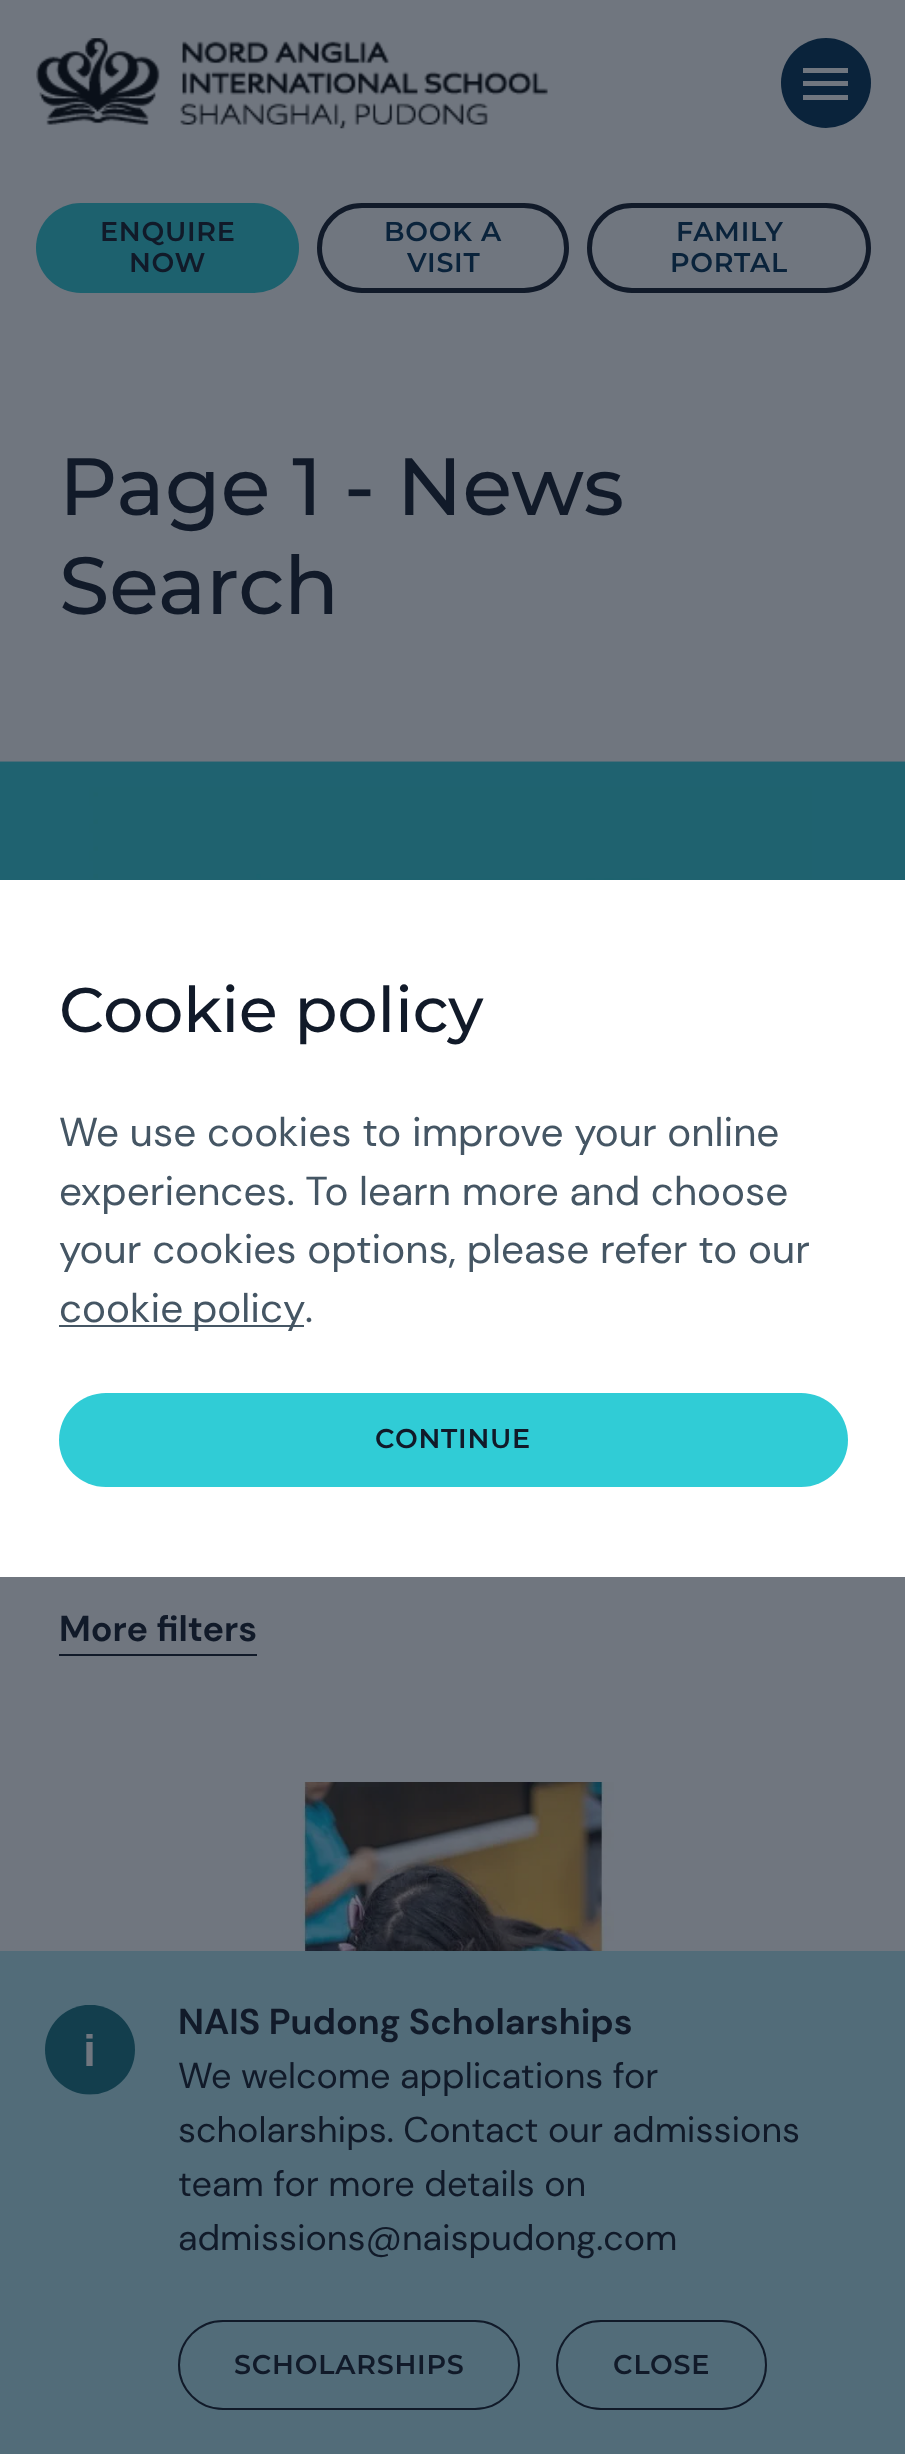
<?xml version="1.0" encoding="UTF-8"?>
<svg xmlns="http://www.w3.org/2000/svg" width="905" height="2454">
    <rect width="100%" height="100%" fill="#70767F"/>
    <image x="36" y="38" width="512" height="91" href="img_01.png"/>
    <circle cx="826" cy="83" r="45" fill="#0A233B"/>
    <rect x="803" y="68" width="45" height="5" fill="#70767F"/>
    <rect x="803" y="81" width="45" height="5" fill="#70767F"/>
    <rect x="803" y="95" width="45" height="5" fill="#70767F"/>
    <rect x="36" y="203" width="263" height="90" rx="45" fill="#1D616E"/>
    <text x="100" y="241" font-family="Montserrat" font-size="27" font-weight="600" letter-spacing="0.75" fill="#111A29">ENQUIRE</text>
    <text x="129" y="272" font-family="Montserrat" font-size="27" font-weight="600" letter-spacing="0.75" fill="#111A29">NOW</text>
    <rect x="319.5" y="205.5" width="247" height="85" rx="42.5" fill="none" stroke="#111A29" stroke-width="5"/>
    <text x="384" y="241" font-family="Montserrat" font-size="27" font-weight="600" letter-spacing="0.75" fill="#0A233B">BOOK A</text>
    <text x="407" y="272" font-family="Montserrat" font-size="27" font-weight="600" letter-spacing="0.75" fill="#0A233B">VISIT</text>
    <rect x="589.5" y="205.5" width="279" height="85" rx="42.5" fill="none" stroke="#111A29" stroke-width="5"/>
    <text x="676" y="241" font-family="Montserrat" font-size="27" font-weight="600" letter-spacing="0.75" fill="#0A233B">FAMILY</text>
    <text x="670" y="272" font-family="Montserrat" font-size="27" font-weight="600" letter-spacing="0.75" fill="#0A233B">PORTAL</text>
    <text font-family="Montserrat" font-size="81" font-weight="500" fill="#111A29">
        <tspan x="59" y="515">Page 1 - News</tspan>
        <tspan x="59" y="614">Search</tspan>
    </text>
    <image x="0" y="761" width="905" height="119" href="img_02.png"/>
    <rect x="0" y="880" width="905" height="697" fill="#FFFFFF"/>
    <text x="59" y="1032" font-family="Montserrat" font-size="63" font-weight="500" fill="#111A29">Cookie policy</text>
    <text font-family="DM Sans" font-size="40.5" fill="#455664">
        <tspan x="59" y="1146">We use cookies to improve your online</tspan>
        <tspan x="59" y="1205">experiences. To learn more and choose</tspan>
        <tspan x="59" y="1263">your cookies options, please refer to our</tspan>
    </text>
    <rect x="59" y="1325" width="245" height="2" fill="#455664"/>
    <text x="59" y="1322" word-spacing="-2" font-family="DM Sans" font-size="40.5" fill="#455664">cookie policy</text>
    <text x="305" y="1322" font-family="DM Sans" font-size="40.5" fill="#455664">.</text>
    <rect x="59" y="1393" width="789" height="94" rx="47" fill="#30CCD6"/>
    <text x="375" y="1448" font-family="Montserrat" font-size="27" font-weight="600" letter-spacing="0.75" fill="#111A29">CONTINUE</text>
    <rect x="59" y="1654" width="198" height="2" fill="#111A29"/>
    <text x="59" y="1641" font-family="DM Sans" font-size="36" font-weight="700" fill="#111A29">More filters</text>
    <image x="300" y="1782" width="314" height="169" href="img_03.png"/>
    <rect x="0" y="1951" width="905" height="503" fill="#526C79"/>
    <image x="45" y="2005" width="90" height="90" href="img_04.png"/>
    <text x="178" y="2034" font-family="DM Sans" font-size="36" font-weight="700" fill="#111A29">NAIS Pudong Scholarships</text>
    <text font-family="DM Sans" font-size="36" fill="#111A29">
        <tspan x="178" y="2088">We welcome applications for</tspan>
        <tspan x="178" y="2142">scholarships. Contact our admissions</tspan>
        <tspan x="178" y="2196">team for more details on</tspan>
        <tspan x="178" y="2250">admissions@naispudong.com</tspan>
    </text>
    <rect x="179" y="2321" width="340" height="88" rx="44" fill="none" stroke="#111A29" stroke-width="2"/>
    <text x="234" y="2374" font-family="Montserrat" font-size="27" font-weight="600" letter-spacing="0.75" fill="#111A29">SCHOLARSHIPS</text>
    <rect x="557" y="2321" width="209" height="88" rx="44" fill="none" stroke="#111A29" stroke-width="2"/>
    <text x="613" y="2374" font-family="Montserrat" font-size="27" font-weight="600" letter-spacing="0.75" fill="#111A29">CLOSE</text>
</svg>
